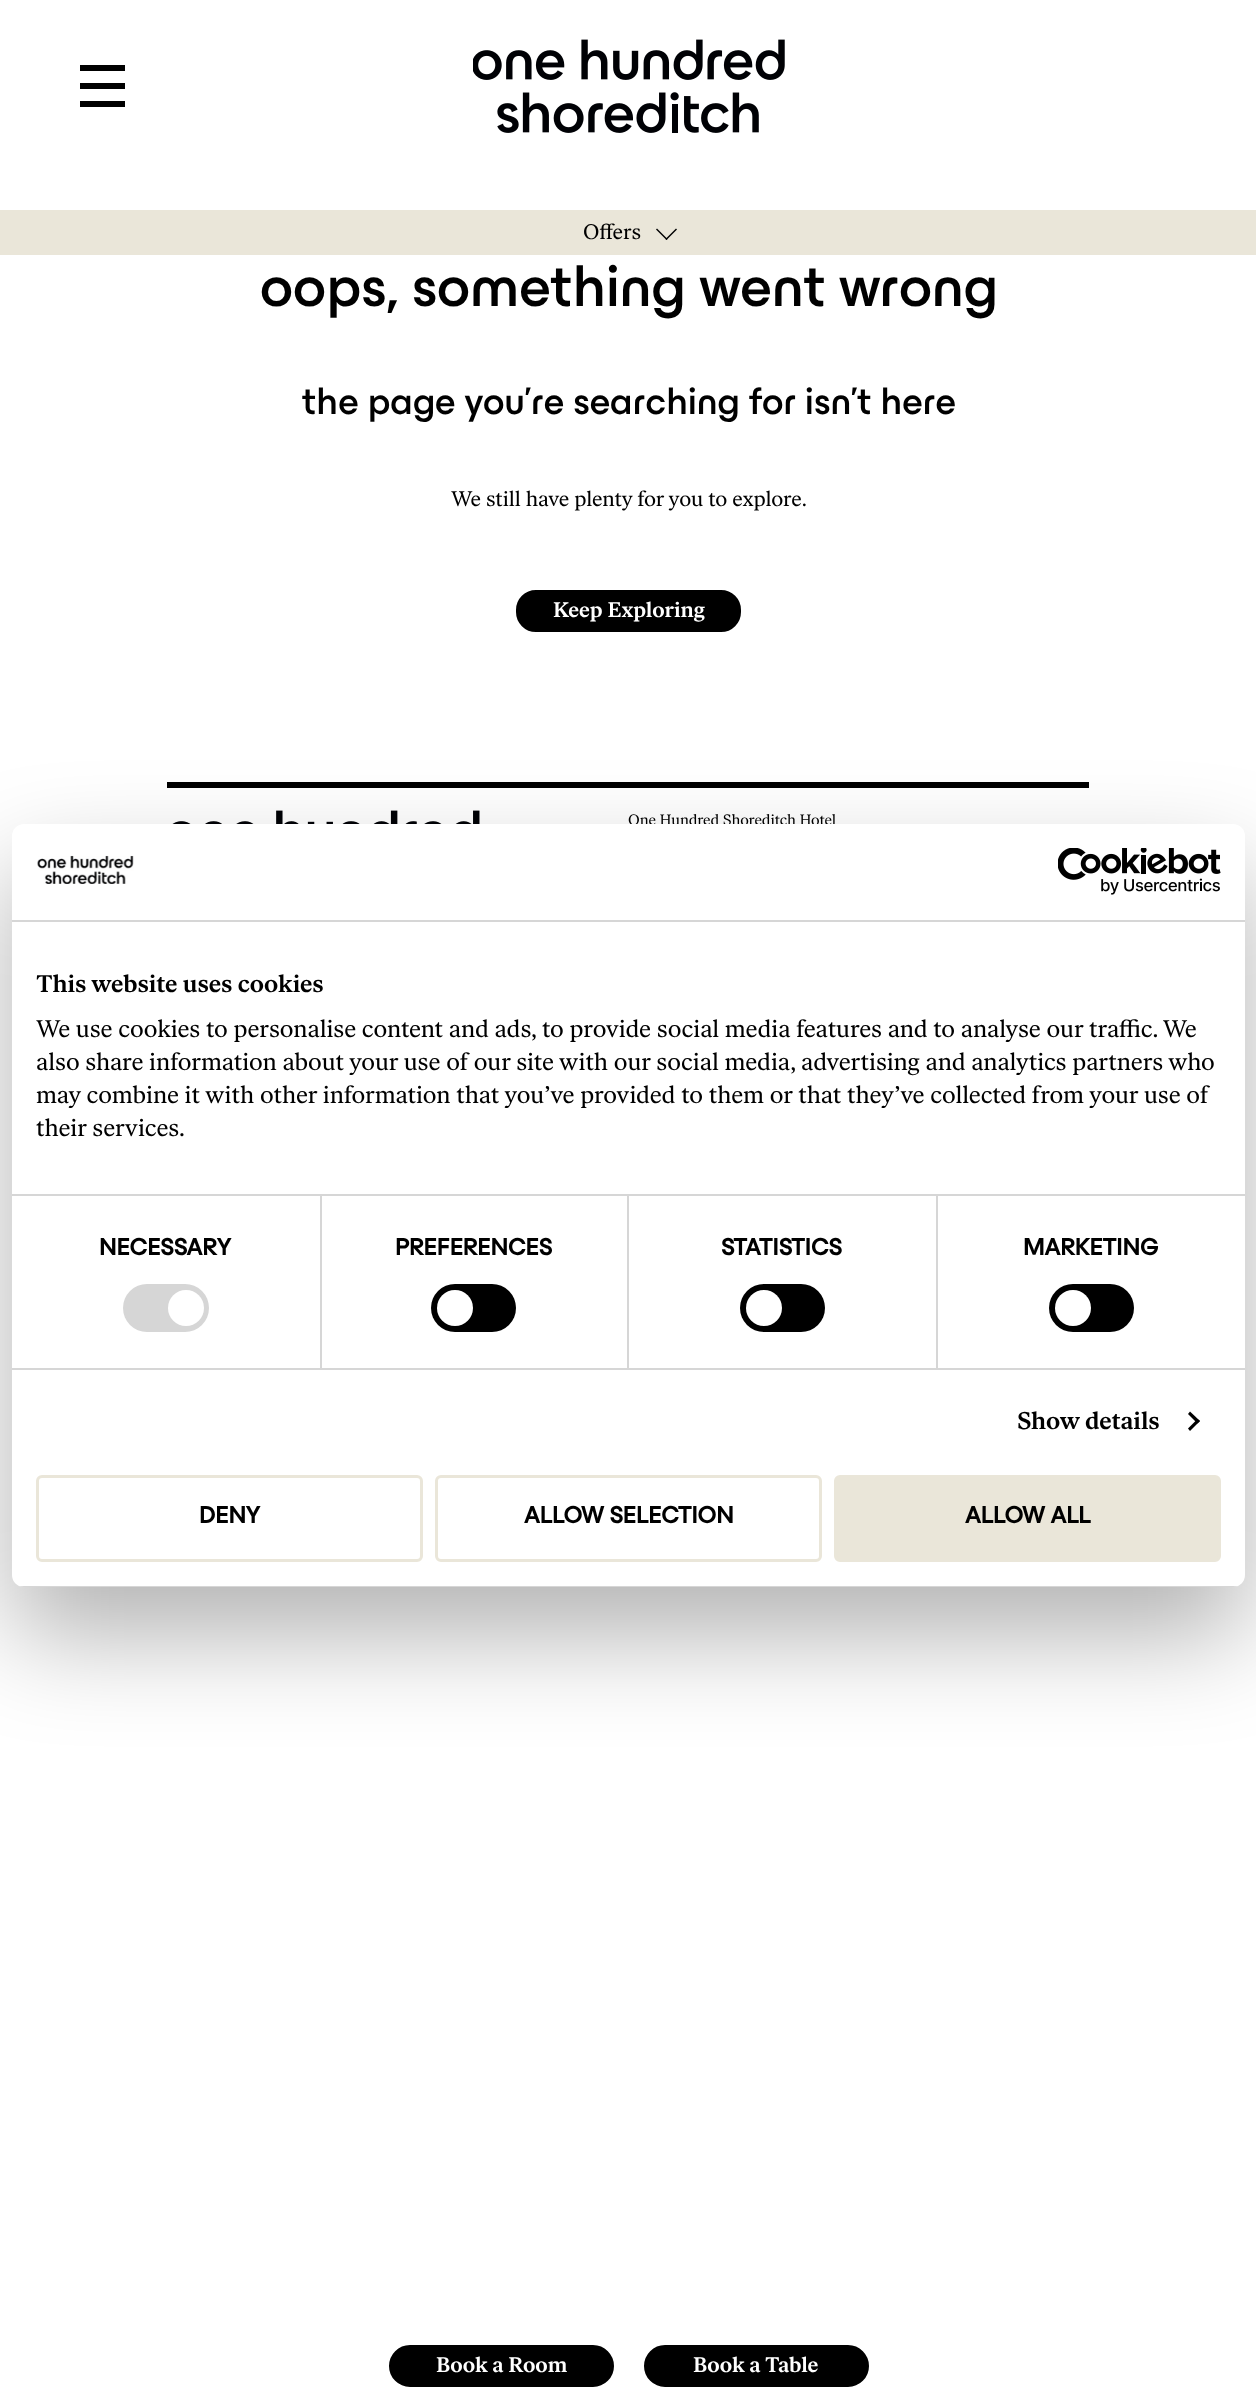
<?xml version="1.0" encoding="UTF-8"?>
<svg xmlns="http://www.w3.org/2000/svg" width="1256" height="2408">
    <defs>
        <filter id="blur1" x="-50%" y="-200%" width="200%" height="500%"><feGaussianBlur stdDeviation="51"/></filter>
        <clipPath id="clip1"><rect x="12" y="824" width="1233" height="763" rx="12"/></clipPath>
    </defs>
    <rect width="100%" height="100%" fill="#FFFFFF"/>
    <rect x="0" y="210" width="1256" height="45" fill="#EAE6D9"/>
    <text x="583" y="239" font-family="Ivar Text" font-size="21" fill="#000000">Offers</text>
    <path d="M 666.5 240 L 656 229.5 L 657 228.5 L 667.5 239 Z" fill="#000000"/>
    <path d="M 666.5 240 L 665.5 239 L 676 228.5 L 677 229.5 Z" fill="#000000"/>
    <text x="260" y="306" font-family="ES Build" font-size="60" font-weight="500" fill="#000000">oops, something went wrong</text>
    <text x="302" y="414" font-family="ES Build" font-size="39" font-weight="500" fill="#000000">the page you're searching for isn't here</text>
    <text x="451" y="506" font-family="Ivar Text" font-size="21" fill="#000000">We still have plenty for you to explore.</text>
    <rect x="517" y="591" width="223" height="40" rx="19" fill="#000000" stroke="#000000" stroke-width="2"/>
    <text x="553" y="617" font-family="Ivar Text" font-size="21" font-weight="600" fill="#FFFFFF">Keep Exploring</text>
    <rect x="167" y="782" width="922" height="6" fill="#000000"/>
    <image x="172" y="810" width="308" height="14" href="img_01.png"/>
    <text x="628" y="825" font-family="Ivar Text" font-size="15" fill="#000000">One Hundred Shoreditch Hotel</text>
    <rect x="80" y="65" width="45" height="6" fill="#000000"/>
    <rect x="80" y="83" width="45" height="6" fill="#000000"/>
    <rect x="80" y="101" width="45" height="6" fill="#000000"/>
    <image x="473" y="39" width="312" height="94" href="img_02.png"/>
    <rect x="390" y="2346" width="223" height="40" rx="20" fill="#000000" stroke="#000000" stroke-width="2"/>
    <text x="436" y="2372" font-family="Ivar Text" font-size="21" font-weight="600" fill="#FFFFFF">Book a Room</text>
    <rect x="645" y="2346" width="223" height="40" rx="20" fill="#000000" stroke="#000000" stroke-width="2"/>
    <text x="693" y="2372" font-family="Ivar Text" font-size="21" font-weight="600" fill="#FFFFFF">Book a Table</text>
    <rect x="12" y="872" width="1233" height="763" rx="12" fill="#000000" fill-opacity="0.3" filter="url(#blur1)"/>
    <rect x="12" y="824" width="1233" height="763" rx="12" fill="#FFFFFF"/>
    <rect x="12" y="920" width="1233" height="2" fill="#D6D6D6"/>
    <image x="37" y="855" width="97" height="29" href="img_03.png"/>
    <image x="1058" y="848" width="163" height="47" href="img_04.png"/>
    <rect x="12" y="1194" width="1233" height="2" fill="#D6D6D6"/>
    <text x="36" y="992" font-family="Ivar Text" font-size="24" font-weight="600" fill="#000000">This website uses cookies</text>
    <text font-family="Ivar Text" font-size="24" fill="#000000">
        <tspan x="36" y="1037">We use cookies to personalise content and ads, to provide social media features and to analyse our traffic. We</tspan>
        <tspan x="36" y="1070">also share information about your use of our site with our social media, advertising and analytics partners who</tspan>
        <tspan x="36" y="1103">may combine it with other information that you’ve provided to them or that they’ve collected from your use of</tspan>
        <tspan x="36" y="1136">their services.</tspan>
    </text>
    <rect x="12" y="1368" width="1233" height="2" fill="#D6D6D6"/>
    <rect x="320" y="1196" width="2" height="172" fill="#D6D6D6"/>
    <text x="99" y="1255" font-family="ES Build" font-size="24" font-weight="700" fill="#000000">NECESSARY</text>
    <rect x="123" y="1284" width="86" height="48" rx="24" fill="#D6D6D6"/>
    <circle cx="186" cy="1308" r="18" fill="#FFFFFF"/>
    <rect x="627" y="1196" width="2" height="172" fill="#D6D6D6"/>
    <text x="395" y="1255" font-family="ES Build" font-size="24" font-weight="700" fill="#000000">PREFERENCES</text>
    <rect x="431" y="1284" width="85" height="48" rx="24" fill="#000000"/>
    <circle cx="455" cy="1308" r="18" fill="#FFFFFF"/>
    <rect x="936" y="1196" width="2" height="172" fill="#D6D6D6"/>
    <text x="721" y="1255" font-family="ES Build" font-size="24" font-weight="700" fill="#000000">STATISTICS</text>
    <rect x="740" y="1284" width="85" height="48" rx="24" fill="#000000"/>
    <circle cx="764" cy="1308" r="18" fill="#FFFFFF"/>
    <text x="1023" y="1255" font-family="ES Build" font-size="24" font-weight="700" fill="#000000">MARKETING</text>
    <rect x="1049" y="1284" width="85" height="48" rx="24" fill="#000000"/>
    <circle cx="1073" cy="1308" r="18" fill="#FFFFFF"/>
    <text x="1017" y="1429" font-family="Ivar Text" font-size="24" font-weight="600" fill="#000000">Show details</text>
    <path d="M 1190 1411.5 L 1200 1421 L 1197.5 1423.5 L 1188 1414 Z" fill="#000000"/>
    <path d="M 1197.5 1419 L 1200 1421 L 1190 1431 L 1188 1428.5 Z" fill="#000000"/>
    <g clip-path="url(#clip1)">
        <rect x="12" y="1586" width="1233" height="1" fill="#D6D6D6"/>
    </g>
    <rect x="37.5" y="1476.5" width="384" height="84" rx="4.5" fill="none" stroke="#EAE6D9" stroke-width="3"/>
    <text x="199" y="1523" font-family="ES Build" font-size="24" font-weight="700" fill="#000000">DENY</text>
    <rect x="436.5" y="1476.5" width="384" height="84" rx="4.5" fill="none" stroke="#EAE6D9" stroke-width="3"/>
    <text x="524" y="1523" font-family="ES Build" font-size="24" font-weight="700" fill="#000000">ALLOW SELECTION</text>
    <rect x="835.5" y="1476.5" width="384" height="84" rx="4.5" fill="#EAE6D9" stroke="#EAE6D9" stroke-width="3"/>
    <text x="965" y="1523" font-family="ES Build" font-size="24" font-weight="700" fill="#000000">ALLOW ALL</text>
</svg>
